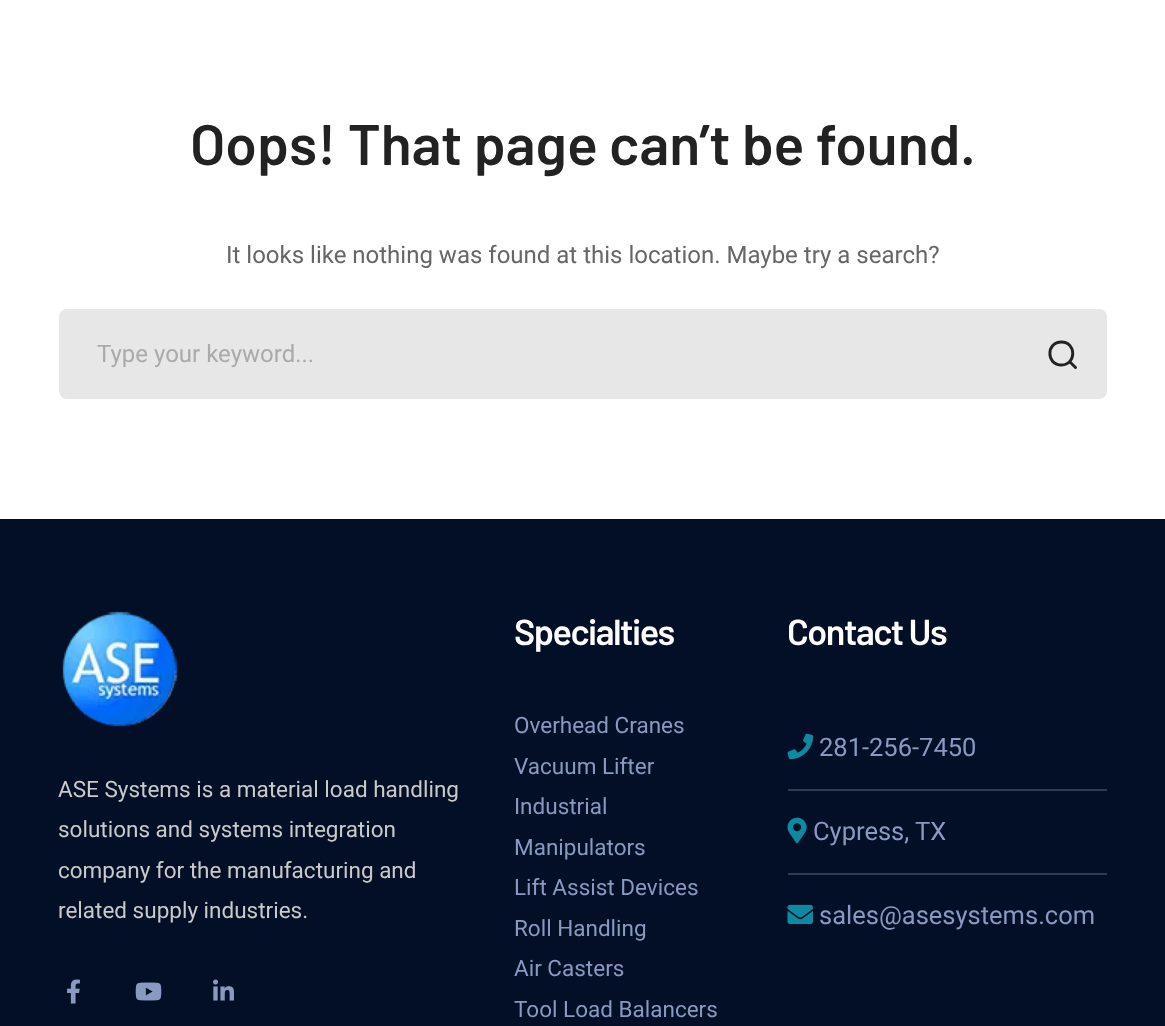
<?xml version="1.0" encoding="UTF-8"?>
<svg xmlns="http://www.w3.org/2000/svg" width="1165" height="1026">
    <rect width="100%" height="100%" fill="#FFFFFF"/>
    <text x="190" y="165" font-family="Barlow" font-size="57" font-weight="600" fill="#222222">Oops! That page can’t be found.</text>
    <text x="226" y="263" font-family="Roboto" font-size="24" fill="#666666">It looks like nothing was found at this location. Maybe try a search?</text>
    <rect x="60" y="310" width="1046" height="88" rx="7" fill="#E7E7E7" stroke="#E7E7E7" stroke-width="2"/>
    <text x="97" y="362" font-family="Roboto" font-size="24" fill="#AAAAAA">Type your keyword...</text>
    <path d="M 1061.5 342 C 1076.5 342 1076.5 365 1061.5 365 C 1046 365 1046 342 1061.5 342 Z M 1075.5 367.5 L 1069.5 361.5" fill="none" stroke="#222222" stroke-width="2.9" stroke-linecap="round" stroke-linejoin="round"/>
    <rect x="0" y="519" width="1165" height="507" fill="#030F27"/>
    <image x="62" y="611" width="116" height="116" href="img_01.png"/>
    <text font-family="Roboto" font-size="22.5" fill="#CACACA">
        <tspan x="58" y="797">ASE Systems is a material load handling</tspan>
        <tspan x="58" y="837">solutions and systems integration</tspan>
        <tspan x="58" y="878">company for the manufacturing and</tspan>
        <tspan x="58" y="918">related supply industries.</tspan>
    </text>
    <image x="67" y="979" width="13" height="25" href="img_02.png"/>
    <image x="135" y="982" width="27" height="19" href="img_03.png"/>
    <image x="213" y="979" width="21" height="22" href="img_04.png"/>
    <text x="514" y="645" font-family="Barlow" font-size="36" font-weight="600" letter-spacing="-1.5" fill="#FFFFFF">Specialties</text>
    <text font-family="Roboto" font-size="22.5" fill="#8A99C0">
        <tspan x="514" y="733">Overhead Cranes</tspan>
        <tspan x="514" y="774">Vacuum Lifter</tspan>
        <tspan x="514" y="814">Industrial</tspan>
        <tspan x="514" y="855">Manipulators</tspan>
        <tspan x="514" y="895">Lift Assist Devices</tspan>
        <tspan x="514" y="936">Roll Handling</tspan>
        <tspan x="514" y="976">Air Casters</tspan>
        <tspan x="514" y="1017">Tool Load Balancers</tspan>
    </text>
    <text x="787" y="645" font-family="Barlow" font-size="36" font-weight="600" letter-spacing="-1.5" fill="#FFFFFF">Contact Us</text>
    <rect x="788" y="789" width="319" height="2" fill="#2F3B50"/>
    <image x="787" y="733" width="26" height="27" href="img_05.png"/>
    <text x="819" y="756" font-family="Roboto" font-size="25.5" fill="#8A99C0">281-256-7450</text>
    <rect x="788" y="873" width="319" height="2" fill="#2F3B50"/>
    <image x="787" y="817" width="20" height="27" href="img_06.png"/>
    <text x="813" y="840" font-family="Roboto" font-size="25.5" fill="#8A99C0">Cypress, TX</text>
    <image x="787" y="904" width="26" height="20" href="img_07.png"/>
    <text x="819" y="924" font-family="Roboto" font-size="25.5" fill="#8A99C0">sales@asesystems.com</text>
</svg>
